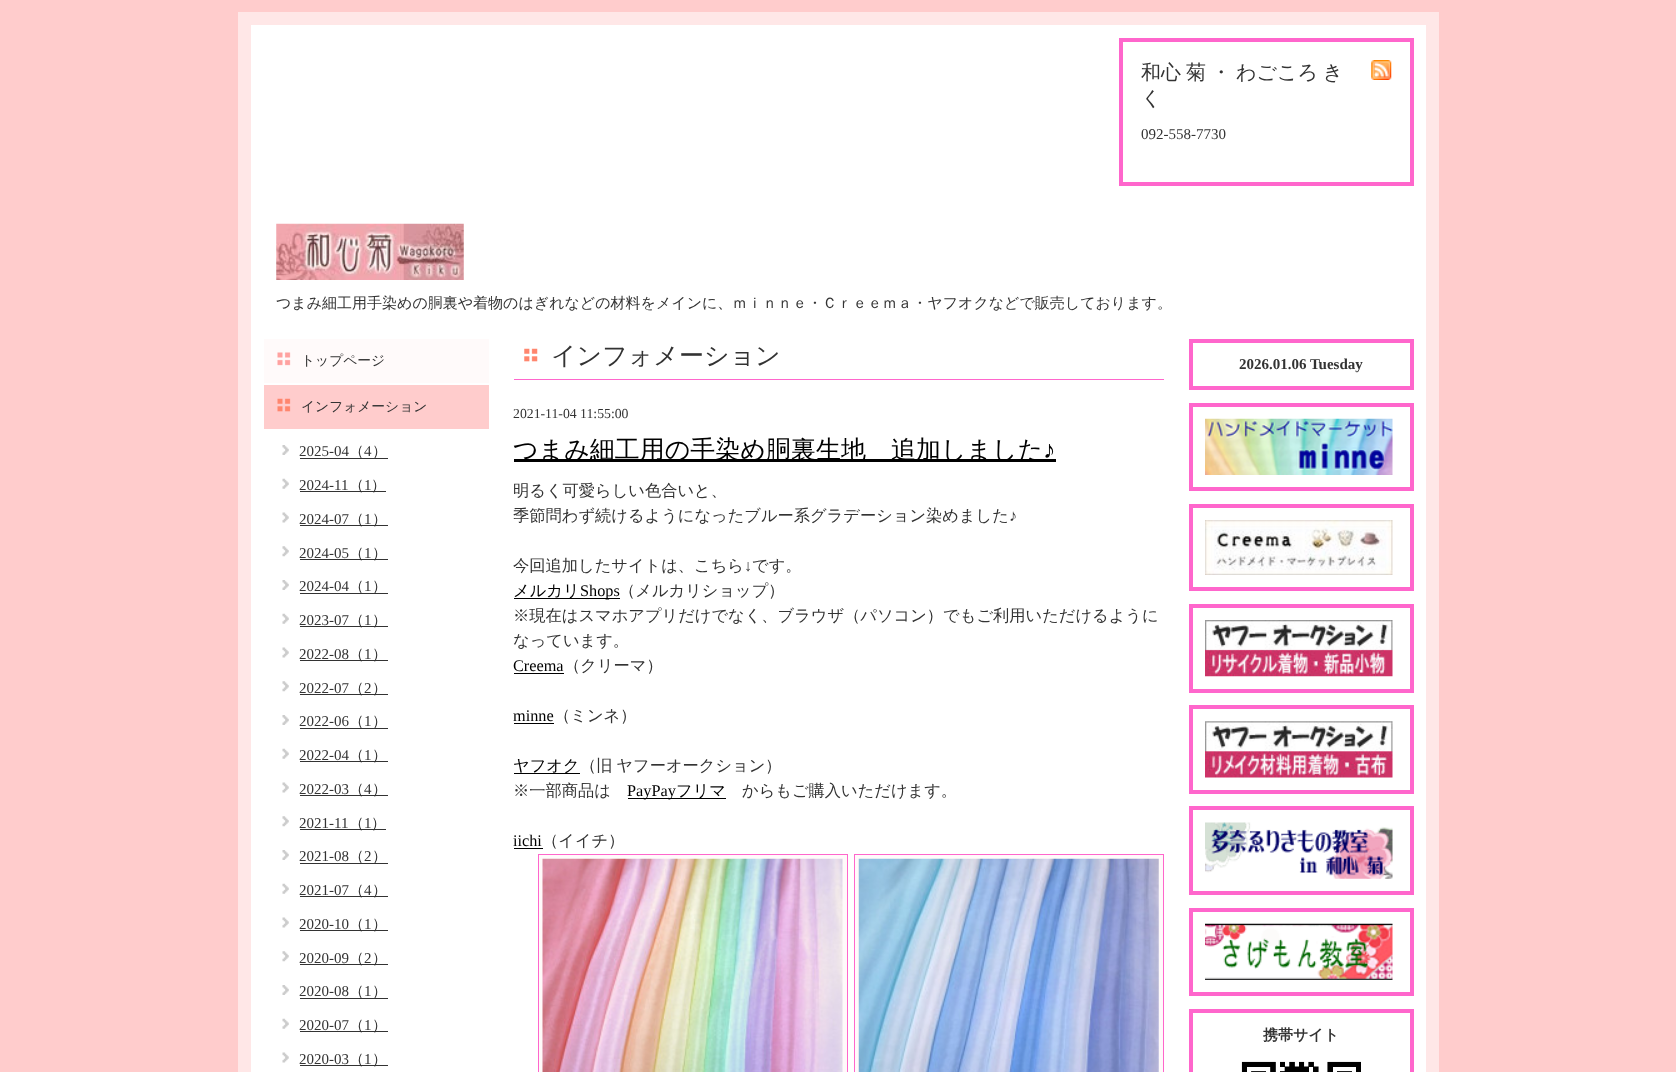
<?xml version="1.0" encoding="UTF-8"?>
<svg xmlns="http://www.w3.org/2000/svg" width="1676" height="1072">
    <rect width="100%" height="100%" fill="#FFCCCC"/>
    <rect x="238" y="12" width="1201" height="1060" fill="#FFE7E7"/>
    <rect x="251" y="25" width="1175" height="1047" fill="#FFFFFF"/>
    <rect x="1121" y="40" width="291" height="144" fill="none" stroke="#FF66CC" stroke-width="4"/>
    <text font-family="WenQuanYi Zen Hei" font-size="20" font-weight="500" fill="#333333">
        <tspan x="1141" y="79" word-spacing="-1">和心 菊 ・ わごころ き</tspan>
        <tspan x="1141" y="105">く</tspan>
    </text>
    <image x="1371" y="60" width="21" height="20" href="img_01.png"/>
    <text x="1141" y="139" font-family="Liberation Serif" font-size="15" fill="#333333">092-558-7730</text>
    <image x="276" y="223" width="188" height="57" href="img_02.png"/>
    <text x="276" y="308" font-family="WenQuanYi Zen Hei" font-size="15" font-weight="500" fill="#333333">つまみ細工用手染めの胴裏や着物のはぎれなどの材料をメインに、ｍｉｎｎｅ・Ｃｒｅｅｍａ・ヤフオクなどで販売しております。</text>
    <rect x="264" y="339" width="225" height="44" fill="#FFFAFA"/>
    <image x="277" y="352" width="14" height="14" href="img_03.png"/>
    <text x="301" y="365" font-family="WenQuanYi Zen Hei" font-size="13.75" font-weight="500" fill="#333333">トップページ</text>
    <rect x="264" y="385" width="225" height="44" fill="#FFCCCC"/>
    <image x="277" y="398" width="14" height="14" href="img_04.png"/>
    <text x="301" y="411" font-family="WenQuanYi Zen Hei" font-size="13.75" font-weight="500" fill="#333333">インフォメーション</text>
    <image x="282" y="445" width="7" height="10" href="img_05.png"/>
    <text x="299" y="456" font-family="Liberation Serif" font-size="15" fill="#333333">2025-04</text>
    <rect x="300" y="458" width="88" height="1" fill="#333333"/>
    <text x="349" y="456" font-family="WenQuanYi Zen Hei" font-size="15" font-weight="500" fill="#333333">（</text>
    <text x="364" y="456" font-family="Liberation Serif" font-size="15" fill="#333333">4</text>
    <text x="372" y="456" font-family="WenQuanYi Zen Hei" font-size="15" font-weight="500" fill="#333333">）</text>
    <image x="282" y="478" width="7" height="11" href="img_06.png"/>
    <text x="299" y="490" font-family="Liberation Serif" font-size="15" fill="#333333">2024-11</text>
    <rect x="300" y="491" width="86" height="1" fill="#333333"/>
    <text x="349" y="490" font-family="WenQuanYi Zen Hei" font-size="15" font-weight="500" fill="#333333">（</text>
    <text x="364" y="490" font-family="Liberation Serif" font-size="15" fill="#333333">1</text>
    <text x="371" y="490" font-family="WenQuanYi Zen Hei" font-size="15" font-weight="500" fill="#333333">）</text>
    <image x="282" y="512" width="7" height="11" href="img_07.png"/>
    <text x="299" y="524" font-family="Liberation Serif" font-size="15" fill="#333333">2024-07</text>
    <rect x="300" y="525" width="88" height="1" fill="#333333"/>
    <text x="349" y="524" font-family="WenQuanYi Zen Hei" font-size="15" font-weight="500" fill="#333333">（</text>
    <text x="364" y="524" font-family="Liberation Serif" font-size="15" fill="#333333">1</text>
    <text x="372" y="524" font-family="WenQuanYi Zen Hei" font-size="15" font-weight="500" fill="#333333">）</text>
    <image x="282" y="546" width="7" height="11" href="img_08.png"/>
    <text x="299" y="558" font-family="Liberation Serif" font-size="15" fill="#333333">2024-05</text>
    <rect x="300" y="559" width="88" height="1" fill="#333333"/>
    <text x="349" y="558" font-family="WenQuanYi Zen Hei" font-size="15" font-weight="500" fill="#333333">（</text>
    <text x="364" y="558" font-family="Liberation Serif" font-size="15" fill="#333333">1</text>
    <text x="372" y="558" font-family="WenQuanYi Zen Hei" font-size="15" font-weight="500" fill="#333333">）</text>
    <image x="282" y="580" width="7" height="10" href="img_05.png"/>
    <text x="299" y="591" font-family="Liberation Serif" font-size="15" fill="#333333">2024-04</text>
    <rect x="300" y="593" width="88" height="1" fill="#333333"/>
    <text x="349" y="591" font-family="WenQuanYi Zen Hei" font-size="15" font-weight="500" fill="#333333">（</text>
    <text x="364" y="591" font-family="Liberation Serif" font-size="15" fill="#333333">1</text>
    <text x="372" y="591" font-family="WenQuanYi Zen Hei" font-size="15" font-weight="500" fill="#333333">）</text>
    <image x="282" y="613" width="7" height="11" href="img_06.png"/>
    <text x="299" y="625" font-family="Liberation Serif" font-size="15" fill="#333333">2023-07</text>
    <rect x="300" y="626" width="88" height="1" fill="#333333"/>
    <text x="349" y="625" font-family="WenQuanYi Zen Hei" font-size="15" font-weight="500" fill="#333333">（</text>
    <text x="364" y="625" font-family="Liberation Serif" font-size="15" fill="#333333">1</text>
    <text x="372" y="625" font-family="WenQuanYi Zen Hei" font-size="15" font-weight="500" fill="#333333">）</text>
    <image x="282" y="647" width="7" height="11" href="img_07.png"/>
    <text x="299" y="659" font-family="Liberation Serif" font-size="15" fill="#333333">2022-08</text>
    <rect x="300" y="660" width="88" height="1" fill="#333333"/>
    <text x="349" y="659" font-family="WenQuanYi Zen Hei" font-size="15" font-weight="500" fill="#333333">（</text>
    <text x="364" y="659" font-family="Liberation Serif" font-size="15" fill="#333333">1</text>
    <text x="372" y="659" font-family="WenQuanYi Zen Hei" font-size="15" font-weight="500" fill="#333333">）</text>
    <image x="282" y="681" width="7" height="11" href="img_08.png"/>
    <text x="299" y="693" font-family="Liberation Serif" font-size="15" fill="#333333">2022-07</text>
    <rect x="300" y="694" width="88" height="1" fill="#333333"/>
    <text x="349" y="693" font-family="WenQuanYi Zen Hei" font-size="15" font-weight="500" fill="#333333">（</text>
    <text x="364" y="693" font-family="Liberation Serif" font-size="15" fill="#333333">2</text>
    <text x="372" y="693" font-family="WenQuanYi Zen Hei" font-size="15" font-weight="500" fill="#333333">）</text>
    <image x="282" y="715" width="7" height="10" href="img_05.png"/>
    <text x="299" y="726" font-family="Liberation Serif" font-size="15" fill="#333333">2022-06</text>
    <rect x="300" y="728" width="88" height="1" fill="#333333"/>
    <text x="349" y="726" font-family="WenQuanYi Zen Hei" font-size="15" font-weight="500" fill="#333333">（</text>
    <text x="364" y="726" font-family="Liberation Serif" font-size="15" fill="#333333">1</text>
    <text x="372" y="726" font-family="WenQuanYi Zen Hei" font-size="15" font-weight="500" fill="#333333">）</text>
    <image x="282" y="748" width="7" height="11" href="img_06.png"/>
    <text x="299" y="760" font-family="Liberation Serif" font-size="15" fill="#333333">2022-04</text>
    <rect x="300" y="761" width="88" height="1" fill="#333333"/>
    <text x="349" y="760" font-family="WenQuanYi Zen Hei" font-size="15" font-weight="500" fill="#333333">（</text>
    <text x="364" y="760" font-family="Liberation Serif" font-size="15" fill="#333333">1</text>
    <text x="372" y="760" font-family="WenQuanYi Zen Hei" font-size="15" font-weight="500" fill="#333333">）</text>
    <image x="282" y="782" width="7" height="11" href="img_07.png"/>
    <text x="299" y="794" font-family="Liberation Serif" font-size="15" fill="#333333">2022-03</text>
    <rect x="300" y="795" width="88" height="1" fill="#333333"/>
    <text x="349" y="794" font-family="WenQuanYi Zen Hei" font-size="15" font-weight="500" fill="#333333">（</text>
    <text x="364" y="794" font-family="Liberation Serif" font-size="15" fill="#333333">4</text>
    <text x="372" y="794" font-family="WenQuanYi Zen Hei" font-size="15" font-weight="500" fill="#333333">）</text>
    <image x="282" y="816" width="7" height="11" href="img_08.png"/>
    <text x="299" y="828" font-family="Liberation Serif" font-size="15" fill="#333333">2021-11</text>
    <rect x="300" y="829" width="86" height="1" fill="#333333"/>
    <text x="349" y="828" font-family="WenQuanYi Zen Hei" font-size="15" font-weight="500" fill="#333333">（</text>
    <text x="364" y="828" font-family="Liberation Serif" font-size="15" fill="#333333">1</text>
    <text x="371" y="828" font-family="WenQuanYi Zen Hei" font-size="15" font-weight="500" fill="#333333">）</text>
    <image x="282" y="850" width="7" height="10" href="img_05.png"/>
    <text x="299" y="861" font-family="Liberation Serif" font-size="15" fill="#333333">2021-08</text>
    <rect x="300" y="863" width="88" height="1" fill="#333333"/>
    <text x="349" y="861" font-family="WenQuanYi Zen Hei" font-size="15" font-weight="500" fill="#333333">（</text>
    <text x="364" y="861" font-family="Liberation Serif" font-size="15" fill="#333333">2</text>
    <text x="372" y="861" font-family="WenQuanYi Zen Hei" font-size="15" font-weight="500" fill="#333333">）</text>
    <image x="282" y="883" width="7" height="11" href="img_06.png"/>
    <text x="299" y="895" font-family="Liberation Serif" font-size="15" fill="#333333">2021-07</text>
    <rect x="300" y="896" width="88" height="1" fill="#333333"/>
    <text x="349" y="895" font-family="WenQuanYi Zen Hei" font-size="15" font-weight="500" fill="#333333">（</text>
    <text x="364" y="895" font-family="Liberation Serif" font-size="15" fill="#333333">4</text>
    <text x="372" y="895" font-family="WenQuanYi Zen Hei" font-size="15" font-weight="500" fill="#333333">）</text>
    <image x="282" y="917" width="7" height="11" href="img_07.png"/>
    <text x="299" y="929" font-family="Liberation Serif" font-size="15" fill="#333333">2020-10</text>
    <rect x="300" y="930" width="88" height="1" fill="#333333"/>
    <text x="349" y="929" font-family="WenQuanYi Zen Hei" font-size="15" font-weight="500" fill="#333333">（</text>
    <text x="364" y="929" font-family="Liberation Serif" font-size="15" fill="#333333">1</text>
    <text x="372" y="929" font-family="WenQuanYi Zen Hei" font-size="15" font-weight="500" fill="#333333">）</text>
    <image x="282" y="951" width="7" height="11" href="img_08.png"/>
    <text x="299" y="963" font-family="Liberation Serif" font-size="15" fill="#333333">2020-09</text>
    <rect x="300" y="964" width="88" height="1" fill="#333333"/>
    <text x="349" y="963" font-family="WenQuanYi Zen Hei" font-size="15" font-weight="500" fill="#333333">（</text>
    <text x="364" y="963" font-family="Liberation Serif" font-size="15" fill="#333333">2</text>
    <text x="372" y="963" font-family="WenQuanYi Zen Hei" font-size="15" font-weight="500" fill="#333333">）</text>
    <image x="282" y="985" width="7" height="10" href="img_05.png"/>
    <text x="299" y="996" font-family="Liberation Serif" font-size="15" fill="#333333">2020-08</text>
    <rect x="300" y="998" width="88" height="1" fill="#333333"/>
    <text x="349" y="996" font-family="WenQuanYi Zen Hei" font-size="15" font-weight="500" fill="#333333">（</text>
    <text x="364" y="996" font-family="Liberation Serif" font-size="15" fill="#333333">1</text>
    <text x="372" y="996" font-family="WenQuanYi Zen Hei" font-size="15" font-weight="500" fill="#333333">）</text>
    <image x="282" y="1018" width="7" height="11" href="img_06.png"/>
    <text x="299" y="1030" font-family="Liberation Serif" font-size="15" fill="#333333">2020-07</text>
    <rect x="300" y="1031" width="88" height="1" fill="#333333"/>
    <text x="349" y="1030" font-family="WenQuanYi Zen Hei" font-size="15" font-weight="500" fill="#333333">（</text>
    <text x="364" y="1030" font-family="Liberation Serif" font-size="15" fill="#333333">1</text>
    <text x="372" y="1030" font-family="WenQuanYi Zen Hei" font-size="15" font-weight="500" fill="#333333">）</text>
    <image x="282" y="1052" width="7" height="11" href="img_07.png"/>
    <text x="299" y="1064" font-family="Liberation Serif" font-size="15" fill="#333333">2020-03</text>
    <rect x="300" y="1065" width="88" height="1" fill="#333333"/>
    <text x="349" y="1064" font-family="WenQuanYi Zen Hei" font-size="15" font-weight="500" fill="#333333">（</text>
    <text x="364" y="1064" font-family="Liberation Serif" font-size="15" fill="#333333">1</text>
    <text x="372" y="1064" font-family="WenQuanYi Zen Hei" font-size="15" font-weight="500" fill="#333333">）</text>
    <image x="524" y="348" width="14" height="14" href="img_09.png"/>
    <rect x="514" y="379" width="650" height="1" fill="#FF66CC"/>
    <text x="551" y="364" font-family="WenQuanYi Zen Hei" font-size="25" font-weight="500" fill="#333333">インフォメーション</text>
    <text x="513" y="418" font-family="Liberation Serif" font-size="13.75" fill="#333333">2021-11-04 11:55:00</text>
    <rect x="514" y="459" width="542" height="3" fill="#000000"/>
    <text x="513" y="458" font-family="WenQuanYi Zen Hei" font-size="25" font-weight="500" fill="#000000">つまみ細工用の手染め胴裏生地　追加しました</text>
    <text x="1043" y="458" font-family="Liberation Serif" font-size="25" fill="#000000">♪</text>
    <text font-family="WenQuanYi Zen Hei" font-size="16.25" font-weight="500" fill="#333333">
        <tspan x="513" y="496">明るく可愛らしい色合いと、</tspan>
        <tspan x="513" y="521">季節問わず続けるようになったブルー系グラデーション染めました</tspan>
    </text>
    <text x="1009" y="521" font-family="Liberation Serif" font-size="16.25" fill="#333333">♪</text>
    <text x="513" y="571" font-family="WenQuanYi Zen Hei" font-size="16.25" font-weight="500" fill="#333333">今回追加したサイトは、こちら</text>
    <text x="744" y="571" font-family="Liberation Serif" font-size="16.25" fill="#333333">↓</text>
    <text x="752" y="571" font-family="WenQuanYi Zen Hei" font-size="16.25" font-weight="500" fill="#333333">です。</text>
    <rect x="514" y="598" width="106" height="1" fill="#000000"/>
    <text x="513" y="596" font-family="WenQuanYi Zen Hei" font-size="16.25" font-weight="500" fill="#000000">メルカリ</text>
    <text x="580" y="596" font-family="Liberation Serif" font-size="16.25" fill="#000000">Shops</text>
    <text x="619" y="596" font-family="WenQuanYi Zen Hei" font-size="16.25" font-weight="500" fill="#333333">（メルカリショップ）</text>
    <text font-family="WenQuanYi Zen Hei" font-size="16.25" font-weight="500" fill="#333333">
        <tspan x="513" y="621">※現在はスマホアプリだけでなく、ブラウザ（パソコン）でもご利用いただけるように</tspan>
        <tspan x="513" y="646">なっています。</tspan>
    </text>
    <text x="513" y="671" font-family="Liberation Serif" font-size="16.25" fill="#000000">Creema</text>
    <rect x="514" y="673" width="50" height="1" fill="#000000"/>
    <text x="564" y="671" font-family="WenQuanYi Zen Hei" font-size="16.25" font-weight="500" fill="#333333">（クリーマ）</text>
    <text x="513" y="721" font-family="Liberation Serif" font-size="16.25" fill="#000000">minne</text>
    <rect x="514" y="723" width="40" height="1" fill="#000000"/>
    <text x="554" y="721" font-family="WenQuanYi Zen Hei" font-size="16.25" font-weight="500" fill="#333333">（ミンネ）</text>
    <rect x="514" y="773" width="66" height="1" fill="#000000"/>
    <text x="513" y="771" font-family="WenQuanYi Zen Hei" font-size="16.25" font-weight="500" fill="#000000">ヤフオク</text>
    <text x="580" y="771" word-spacing="-1" font-family="WenQuanYi Zen Hei" font-size="16.25" font-weight="500" fill="#333333">（旧 ヤフーオークション）</text>
    <text x="513" y="796" font-family="WenQuanYi Zen Hei" font-size="16.25" font-weight="500" fill="#333333">※一部商品は</text>
    <rect x="628" y="798" width="98" height="1" fill="#000000"/>
    <text x="627" y="796" font-family="Liberation Serif" font-size="16.25" fill="#000000">PayPay</text>
    <text x="676" y="796" font-family="WenQuanYi Zen Hei" font-size="16.25" font-weight="500" fill="#000000">フリマ</text>
    <text x="742" y="796" font-family="WenQuanYi Zen Hei" font-size="16.25" font-weight="500" fill="#333333">からもご購入いただけます。</text>
    <text x="513" y="846" font-family="Liberation Serif" font-size="16.25" fill="#000000">iichi</text>
    <rect x="514" y="848" width="29" height="1" fill="#000000"/>
    <text x="542" y="846" font-family="WenQuanYi Zen Hei" font-size="16.25" font-weight="500" fill="#333333">（イイチ）</text>
    <rect x="538.5" y="854.5" width="309" height="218" fill="#FFFAFA" stroke="#FF66CC"/>
    <image x="542" y="858" width="301" height="214" href="img_10.png"/>
    <rect x="854.5" y="854.5" width="309" height="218" fill="#FFFAFA" stroke="#FF66CC"/>
    <image x="858" y="858" width="301" height="214" href="img_11.png"/>
    <rect x="1191" y="341" width="221" height="47" fill="none" stroke="#FF66CC" stroke-width="4"/>
    <text x="1239" y="369" font-family="Liberation Serif" font-size="15" font-weight="700" fill="#333333">2026.01.06 Tuesday</text>
    <rect x="1191" y="405" width="221" height="84" fill="none" stroke="#FF66CC" stroke-width="4"/>
    <image x="1205" y="418" width="188" height="57" href="img_12.png"/>
    <rect x="1191" y="506" width="221" height="83" fill="none" stroke="#FF66CC" stroke-width="4"/>
    <image x="1205" y="520" width="188" height="55" href="img_13.png"/>
    <rect x="1191" y="606" width="221" height="85" fill="none" stroke="#FF66CC" stroke-width="4"/>
    <image x="1205" y="620" width="188" height="57" href="img_14.png"/>
    <rect x="1191" y="707" width="221" height="85" fill="none" stroke="#FF66CC" stroke-width="4"/>
    <image x="1205" y="721" width="188" height="57" href="img_15.png"/>
    <rect x="1191" y="808" width="221" height="85" fill="none" stroke="#FF66CC" stroke-width="4"/>
    <image x="1205" y="822" width="188" height="57" href="img_16.png"/>
    <rect x="1191" y="910" width="221" height="84" fill="none" stroke="#FF66CC" stroke-width="4"/>
    <image x="1205" y="923" width="188" height="57" href="img_17.png"/>
    <rect x="1191" y="1011" width="221" height="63" fill="none" stroke="#FF66CC" stroke-width="4"/>
    <text x="1263" y="1040" font-family="WenQuanYi Zen Hei" font-size="15" font-weight="700" fill="#333333">携帯サイト</text>
    <image x="1241" y="1061" width="120" height="11" href="img_18.png"/>
</svg>
